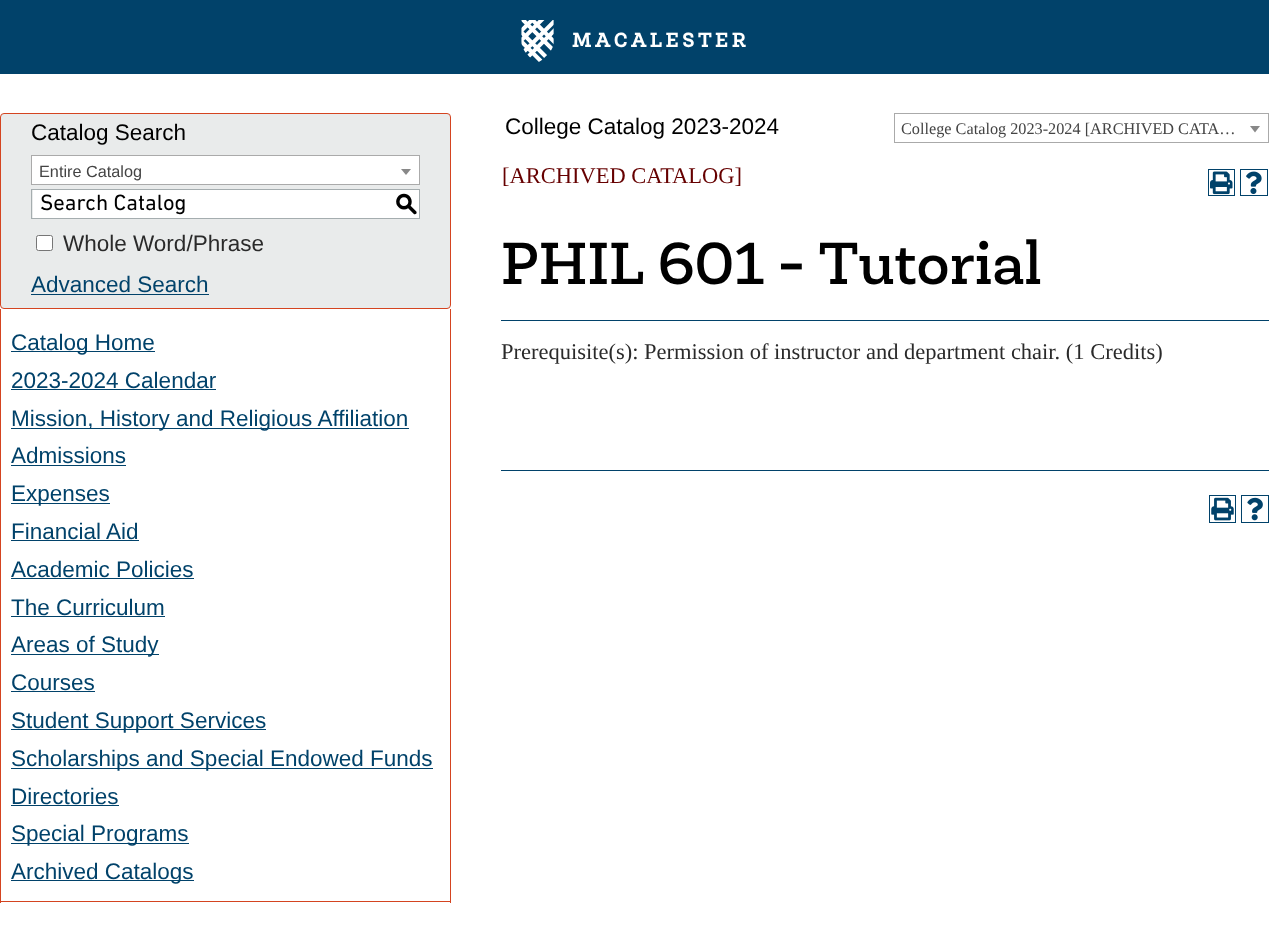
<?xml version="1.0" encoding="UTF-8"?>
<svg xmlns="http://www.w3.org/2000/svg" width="1269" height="925">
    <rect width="100%" height="100%" fill="#FFFFFF"/>
    <rect x="0" y="0" width="1269" height="74" fill="#01426A"/>
    <image x="521" y="20" width="33" height="42" href="img_01.png"/>
    <text x="572" y="47" font-family="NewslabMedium" font-size="20" font-weight="700" letter-spacing="4" fill="#FFFFFF">MACALESTER</text>
    <text x="505" y="134" font-family="Liberation Sans" font-size="22.5" fill="#000000">College Catalog 2023-2024</text>
    <rect x="894.5" y="113.5" width="374" height="29" fill="none" stroke="#AAAAAA"/>
    <text x="901" y="134" font-family="Liberation Serif" font-size="16.25" fill="#444444">College Catalog 2023-2024 [ARCHIVED CATA…</text>
    <path d="M 1250 126 H 1260 L 1255 132.5 Z" fill="#888888"/>
    <rect x="0.5" y="113.5" width="450" height="195" rx="3.5" fill="#E9EBEB" stroke="#D44420"/>
    <text x="31" y="140" font-family="Liberation Sans" font-size="22.5" fill="#000000">Catalog Search</text>
    <rect x="31.5" y="155.5" width="388" height="29" fill="#FFFFFF" stroke="#AAAAAA"/>
    <text x="39" y="177" font-family="Liberation Sans" font-size="16.25" fill="#444444">Entire Catalog</text>
    <path d="M 401 169 H 411 L 406 175 Z" fill="#888888"/>
    <rect x="33" y="190" width="386" height="28" fill="#FFFFFF"/>
    <rect x="31.5" y="189.5" width="388" height="29" fill="none" stroke="#A5ADAF"/>
    <text x="40" y="210" font-family="DIN Next" font-size="22.5" fill="#000000">Search Catalog</text>
    <text x="395" y="211" font-family="'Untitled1'" font-size="22.5" font-weight="500" fill="#000000">S</text>
    <rect x="36.5" y="235.5" width="16" height="15" rx="2" fill="#FFFFFF" stroke="#767676"/>
    <text x="63" y="251" font-family="Liberation Sans" font-size="22.5" fill="#2A2A2A">Whole Word/Phrase</text>
    <text x="31" y="292" font-family="Liberation Sans" font-size="22.5" fill="#01426A">Advanced Search</text>
    <rect x="31" y="294" width="178" height="1" fill="#01426A"/>
    <rect x="450" y="309" width="1" height="594" fill="#D44420"/>
    <rect x="0" y="901" width="451" height="1" fill="#D44420"/>
    <rect x="0" y="309" width="1" height="594" fill="#D44420"/>
    <rect x="11" y="351" width="144" height="1" fill="#01426A"/>
    <text font-family="Liberation Sans" font-size="22.5" fill="#01426A">
        <tspan x="11" y="350">Catalog Home</tspan>
        <tspan x="11" y="388">2023-2024 Calendar</tspan>
    </text>
    <rect x="11" y="389" width="205" height="1" fill="#01426A"/>
    <rect x="11" y="428" width="398" height="1" fill="#01426A"/>
    <text font-family="Liberation Sans" font-size="22.5" fill="#01426A">
        <tspan x="11" y="426">Mission, History and Religious Affiliation</tspan>
        <tspan x="11" y="463">Admissions</tspan>
    </text>
    <rect x="11" y="465" width="115" height="1" fill="#01426A"/>
    <rect x="11" y="503" width="99" height="1" fill="#01426A"/>
    <text font-family="Liberation Sans" font-size="22.5" fill="#01426A">
        <tspan x="11" y="501">Expenses</tspan>
        <tspan x="11" y="539">Financial Aid</tspan>
    </text>
    <rect x="11" y="540" width="128" height="1" fill="#01426A"/>
    <text x="11" y="577" font-family="Liberation Sans" font-size="22.5" fill="#01426A">Academic Policies</text>
    <rect x="11" y="578" width="183" height="1" fill="#01426A"/>
    <text x="11" y="615" font-family="Liberation Sans" font-size="22.5" fill="#01426A">The Curriculum</text>
    <rect x="11" y="616" width="154" height="1" fill="#01426A"/>
    <rect x="11" y="654" width="148" height="1" fill="#01426A"/>
    <text font-family="Liberation Sans" font-size="22.5" fill="#01426A">
        <tspan x="11" y="652">Areas of Study</tspan>
        <tspan x="11" y="690">Courses</tspan>
    </text>
    <rect x="11" y="691" width="84" height="1" fill="#01426A"/>
    <rect x="11" y="729" width="255" height="1" fill="#01426A"/>
    <text x="11" y="728" font-family="Liberation Sans" font-size="22.5" fill="#01426A">Student Support Services</text>
    <rect x="11" y="768" width="422" height="1" fill="#01426A"/>
    <text font-family="Liberation Sans" font-size="22.5" fill="#01426A">
        <tspan x="11" y="766">Scholarships and Special Endowed Funds</tspan>
        <tspan x="11" y="804">Directories</tspan>
    </text>
    <rect x="11" y="805" width="108" height="1" fill="#01426A"/>
    <rect x="11" y="843" width="178" height="1" fill="#01426A"/>
    <text x="11" y="841" font-family="Liberation Sans" font-size="22.5" fill="#01426A">Special Programs</text>
    <rect x="11" y="880" width="183" height="1" fill="#01426A"/>
    <text x="11" y="879" font-family="Liberation Sans" font-size="22.5" fill="#01426A">Archived Catalogs</text>
    <text x="502" y="183" font-family="Liberation Serif" font-size="22.5" fill="#660000">[ARCHIVED CATALOG]</text>
    <rect x="1208.5" y="169.5" width="26" height="26" fill="none" stroke="#01426A"/>
    <image x="1210" y="171" width="23" height="24" href="img_02.png"/>
    <rect x="1240.5" y="169.5" width="27" height="26" fill="none" stroke="#01426A"/>
    <image x="1246" y="171" width="16" height="23" href="img_03.png"/>
    <text x="501" y="284" font-family="NewslabMedium" font-size="60" fill="#000000">PHIL 601 - Tutorial</text>
    <rect x="501" y="320" width="768" height="1" fill="#01426A"/>
    <text x="501" y="359" font-family="Liberation Serif" font-size="22.5" fill="#2A2A2A">Prerequisite(s): Permission of instructor and department chair. (1 Credits)</text>
    <rect x="501" y="470" width="768" height="1" fill="#01426A"/>
    <rect x="1209.5" y="495.5" width="26" height="27" fill="none" stroke="#01426A"/>
    <image x="1211" y="497" width="23" height="24" href="img_04.png"/>
    <rect x="1241.5" y="495.5" width="27" height="27" fill="none" stroke="#01426A"/>
    <image x="1247" y="497" width="16" height="24" href="img_05.png"/>
</svg>
